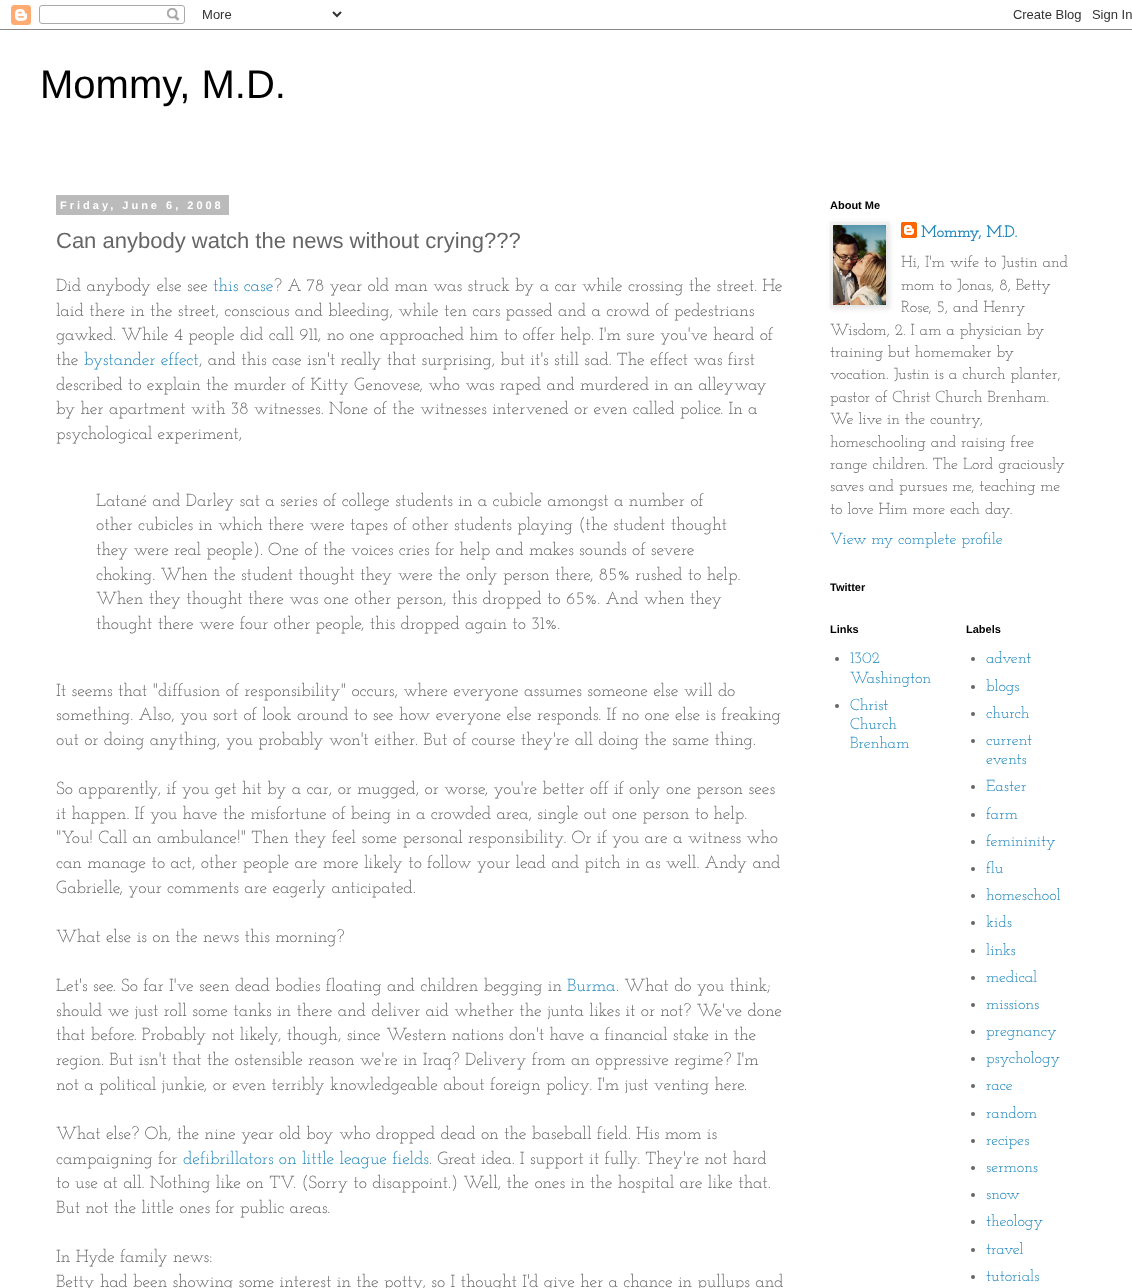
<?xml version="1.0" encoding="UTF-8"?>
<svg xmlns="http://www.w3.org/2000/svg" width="1132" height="1288">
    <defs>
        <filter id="blur1" x="-50%" y="-200%" width="200%" height="500%"><feGaussianBlur stdDeviation="2.5"/></filter>
    </defs>
    <rect width="100%" height="100%" fill="#FFFFFF"/>
    <image x="0" y="5" width="1132" height="25" href="img_01.png"/>
    <text x="40" y="98" font-family="Liberation Sans" font-size="40" fill="#000000">Mommy, M.D.</text>
    <rect x="56" y="195" width="173" height="20" fill="#BBBBBB"/>
    <text x="60" y="209" font-family="Liberation Sans" font-size="11" font-weight="700" letter-spacing="3" fill="#FFFFFF">Friday, June 6, 2008</text>
    <text x="56" y="248" font-family="Liberation Sans" font-size="22" fill="#666666">Can anybody watch the news without crying???</text>
    <text x="56" y="291" font-family="Josefin Slab" font-size="17.6" font-weight="100" fill="#666666">Did anybody else see</text>
    <text x="213" y="291" font-family="Josefin Slab" font-size="17.6" font-weight="100" fill="#2288BB">this case</text>
    <text x="274" y="291" font-family="Josefin Slab" font-size="17.6" font-weight="100" fill="#666666">? A 78 year old man was struck by a car while crossing the street. He</text>
    <text font-family="Josefin Slab" font-size="17.6" font-weight="100" fill="#666666">
        <tspan x="56" y="316">laid there in the street, conscious and bleeding, while ten cars passed and a crowd of pedestrians</tspan>
        <tspan x="56" y="340">gawked. While 4 people did call 911, no one approached him to offer help. I'm sure you've heard of</tspan>
        <tspan x="56" y="365">the</tspan>
    </text>
    <text x="84" y="365" font-family="Josefin Slab" font-size="17.6" font-weight="100" fill="#2288BB">bystander effect</text>
    <text x="199" y="365" font-family="Josefin Slab" font-size="17.6" font-weight="100" fill="#666666">, and this case isn't really that surprising, but it's still sad. The effect was first</text>
    <text font-family="Josefin Slab" font-size="17.6" font-weight="100" fill="#666666">
        <tspan x="56" y="390">described to explain the murder of Kitty Genovese, who was raped and murdered in an alleyway</tspan>
        <tspan x="56" y="414">by her apartment with 38 witnesses. None of the witnesses intervened or even called police. In a</tspan>
        <tspan x="56" y="439">psychological experiment,</tspan>
    </text>
    <text font-family="Josefin Slab" font-size="17.6" font-weight="100" fill="#666666">
        <tspan x="96" y="506">Latané and Darley sat a series of college students in a cubicle amongst a number of</tspan>
        <tspan x="96" y="530">other cubicles in which there were tapes of other students playing (the student thought</tspan>
        <tspan x="96" y="555">they were real people). One of the voices cries for help and makes sounds of severe</tspan>
        <tspan x="96" y="580">choking. When the student thought they were the only person there, 85% rushed to help.</tspan>
        <tspan x="96" y="604">When they thought there was one other person, this dropped to 65%. And when they</tspan>
        <tspan x="96" y="629">thought there were four other people, this dropped again to 31%.</tspan>
    </text>
    <text font-family="Josefin Slab" font-size="17.6" font-weight="100" fill="#666666">
        <tspan x="56" y="696">It seems that "diffusion of responsibility" occurs, where everyone assumes someone else will do</tspan>
        <tspan x="56" y="720">something. Also, you sort of look around to see how everyone else responds. If no one else is freaking</tspan>
        <tspan x="56" y="745">out or doing anything, you probably won't either. But of course they're all doing the same thing.</tspan>
    </text>
    <text font-family="Josefin Slab" font-size="17.6" font-weight="100" fill="#666666">
        <tspan x="56" y="794">So apparently, if you get hit by a car, or mugged, or worse, you're better off if only one person sees</tspan>
        <tspan x="56" y="819">it happen. If you have the misfortune of being in a crowded area, single out one person to help.</tspan>
        <tspan x="56" y="843">"You! Call an ambulance!" Then they feel some personal responsibility. Or if you are a witness who</tspan>
        <tspan x="56" y="868">can manage to act, other people are more likely to follow your lead and pitch in as well. Andy and</tspan>
        <tspan x="56" y="893">Gabrielle, your comments are eagerly anticipated.</tspan>
    </text>
    <text x="56" y="942" font-family="Josefin Slab" font-size="17.6" font-weight="100" fill="#666666">What else is on the news this morning?</text>
    <text x="56" y="991" font-family="Josefin Slab" font-size="17.6" font-weight="100" fill="#666666">Let's see. So far I've seen dead bodies floating and children begging in</text>
    <text x="567" y="991" font-family="Josefin Slab" font-size="17.6" font-weight="100" fill="#2288BB">Burma</text>
    <text x="616" y="991" font-family="Josefin Slab" font-size="17.6" font-weight="100" fill="#666666">. What do you think;</text>
    <text font-family="Josefin Slab" font-size="17.6" font-weight="100" fill="#666666">
        <tspan x="56" y="1016">should we just roll some tanks in there and deliver aid whether the junta likes it or not? We've done</tspan>
        <tspan x="56" y="1040">that before. Probably not likely, though, since Western nations don't have a financial stake in the</tspan>
        <tspan x="56" y="1065">region. But isn't that the ostensible reason we're in Iraq? Delivery from an oppressive regime? I'm</tspan>
        <tspan x="56" y="1090">not a political junkie, or even terribly knowledgeable about foreign policy. I'm just venting here.</tspan>
    </text>
    <text font-family="Josefin Slab" font-size="17.6" font-weight="100" fill="#666666">
        <tspan x="56" y="1139">What else? Oh, the nine year old boy who dropped dead on the baseball field. His mom is</tspan>
        <tspan x="56" y="1164">campaigning for</tspan>
    </text>
    <text x="183" y="1164" font-family="Josefin Slab" font-size="17.6" font-weight="100" fill="#2288BB">defibrillators on little league fields</text>
    <text x="429" y="1164" font-family="Josefin Slab" font-size="17.6" font-weight="100" fill="#666666">. Great idea. I support it fully. They're not hard</text>
    <text font-family="Josefin Slab" font-size="17.6" font-weight="100" fill="#666666">
        <tspan x="56" y="1188">to use at all. Nothing like on TV. (Sorry to disappoint.) Well, the ones in the hospital are like that.</tspan>
        <tspan x="56" y="1213">But not the little ones for public areas.</tspan>
    </text>
    <text font-family="Josefin Slab" font-size="17.6" font-weight="100" fill="#666666">
        <tspan x="56" y="1262">In Hyde family news:</tspan>
        <tspan x="56" y="1287">Betty had been showing some interest in the potty, so I thought I'd give her a chance in pullups and</tspan>
    </text>
    <text x="830" y="209" font-family="Liberation Sans" font-size="11" font-weight="700" fill="#000000">About Me</text>
    <rect x="831" y="223" width="59" height="86" fill="#000000" fill-opacity="0.1" filter="url(#blur1)"/>
    <rect x="830.5" y="222.5" width="58" height="85" fill="none" stroke="#EEEEEE"/>
    <image x="833" y="225" width="53" height="80" href="img_02.png"/>
    <image x="901" y="222" width="16" height="16" href="img_03.png"/>
    <text x="921" y="237" font-family="Josefin Slab" font-size="16" font-weight="700" fill="#2288BB">Mommy, M.D.</text>
    <text font-family="Josefin Slab" font-size="16" font-weight="100" fill="#666666">
        <tspan x="901" y="267">Hi, I'm wife to Justin and</tspan>
        <tspan x="901" y="290">mom to Jonas, 8, Betty</tspan>
        <tspan x="901" y="312">Rose, 5, and Henry</tspan>
    </text>
    <text font-family="Josefin Slab" font-size="16" font-weight="100" fill="#666666">
        <tspan x="830" y="335">Wisdom, 2. I am a physician by</tspan>
        <tspan x="830" y="357">training but homemaker by</tspan>
        <tspan x="830" y="379">vocation. Justin is a church planter,</tspan>
        <tspan x="830" y="402">pastor of Christ Church Brenham.</tspan>
        <tspan x="830" y="424">We live in the country,</tspan>
        <tspan x="830" y="447">homeschooling and raising free</tspan>
        <tspan x="830" y="469">range children. The Lord graciously</tspan>
        <tspan x="830" y="491">saves and pursues me, teaching me</tspan>
        <tspan x="830" y="514">to love Him more each day.</tspan>
    </text>
    <text x="830" y="544" font-family="Josefin Slab" font-size="16" font-weight="100" fill="#2288BB">View my complete profile</text>
    <text x="830" y="591" font-family="Liberation Sans" font-size="11" font-weight="700" fill="#000000">Twitter</text>
    <text x="830" y="633" font-family="Liberation Sans" font-size="11" font-weight="700" fill="#000000">Links</text>
    <circle cx="837" cy="659" r="2" fill="#666666"/>
    <text font-family="Josefin Slab" font-size="16" font-weight="100" fill="#2288BB">
        <tspan x="850" y="663">1302</tspan>
        <tspan x="850" y="683">Washington</tspan>
    </text>
    <circle cx="837" cy="706" r="2" fill="#666666"/>
    <text font-family="Josefin Slab" font-size="16" font-weight="100" fill="#2288BB">
        <tspan x="850" y="710">Christ</tspan>
        <tspan x="850" y="729">Church</tspan>
        <tspan x="850" y="748">Brenham</tspan>
    </text>
    <text x="966" y="633" font-family="Liberation Sans" font-size="11" font-weight="700" fill="#000000">Labels</text>
    <circle cx="973" cy="659" r="2" fill="#666666"/>
    <text x="986" y="663" font-family="Josefin Slab" font-size="16" font-weight="100" fill="#2288BB">advent</text>
    <circle cx="973" cy="687" r="2" fill="#666666"/>
    <text x="986" y="691" font-family="Josefin Slab" font-size="16" font-weight="100" fill="#2288BB">blogs</text>
    <circle cx="973" cy="714" r="2" fill="#666666"/>
    <text x="986" y="718" font-family="Josefin Slab" font-size="16" font-weight="100" fill="#2288BB">church</text>
    <circle cx="973" cy="741" r="2" fill="#666666"/>
    <text font-family="Josefin Slab" font-size="16" font-weight="100" fill="#2288BB">
        <tspan x="986" y="745">current</tspan>
        <tspan x="986" y="764">events</tspan>
    </text>
    <circle cx="973" cy="787" r="2" fill="#666666"/>
    <text x="986" y="791" font-family="Josefin Slab" font-size="16" font-weight="100" fill="#2288BB">Easter</text>
    <circle cx="973" cy="815" r="2" fill="#666666"/>
    <text x="986" y="819" font-family="Josefin Slab" font-size="16" font-weight="100" fill="#2288BB">farm</text>
    <circle cx="973" cy="842" r="2" fill="#666666"/>
    <text x="986" y="846" font-family="Josefin Slab" font-size="16" font-weight="100" fill="#2288BB">femininity</text>
    <circle cx="973" cy="869" r="2" fill="#666666"/>
    <text x="986" y="873" font-family="Josefin Slab" font-size="16" font-weight="100" fill="#2288BB">flu</text>
    <circle cx="973" cy="896" r="2" fill="#666666"/>
    <text x="986" y="900" font-family="Josefin Slab" font-size="16" font-weight="100" fill="#2288BB">homeschool</text>
    <circle cx="973" cy="923" r="2" fill="#666666"/>
    <text x="986" y="927" font-family="Josefin Slab" font-size="16" font-weight="100" fill="#2288BB">kids</text>
    <circle cx="973" cy="951" r="2" fill="#666666"/>
    <text x="986" y="955" font-family="Josefin Slab" font-size="16" font-weight="100" fill="#2288BB">links</text>
    <circle cx="973" cy="978" r="2" fill="#666666"/>
    <text x="986" y="982" font-family="Josefin Slab" font-size="16" font-weight="100" fill="#2288BB">medical</text>
    <circle cx="973" cy="1005" r="2" fill="#666666"/>
    <text x="986" y="1009" font-family="Josefin Slab" font-size="16" font-weight="100" fill="#2288BB">missions</text>
    <circle cx="973" cy="1032" r="2" fill="#666666"/>
    <text x="986" y="1036" font-family="Josefin Slab" font-size="16" font-weight="100" fill="#2288BB">pregnancy</text>
    <circle cx="973" cy="1059" r="2" fill="#666666"/>
    <text x="986" y="1063" font-family="Josefin Slab" font-size="16" font-weight="100" fill="#2288BB">psychology</text>
    <circle cx="973" cy="1086" r="2" fill="#666666"/>
    <text x="986" y="1090" font-family="Josefin Slab" font-size="16" font-weight="100" fill="#2288BB">race</text>
    <circle cx="973" cy="1114" r="2" fill="#666666"/>
    <text x="986" y="1118" font-family="Josefin Slab" font-size="16" font-weight="100" fill="#2288BB">random</text>
    <circle cx="973" cy="1141" r="2" fill="#666666"/>
    <text x="986" y="1145" font-family="Josefin Slab" font-size="16" font-weight="100" fill="#2288BB">recipes</text>
    <circle cx="973" cy="1168" r="2" fill="#666666"/>
    <text x="986" y="1172" font-family="Josefin Slab" font-size="16" font-weight="100" fill="#2288BB">sermons</text>
    <circle cx="973" cy="1195" r="2" fill="#666666"/>
    <text x="986" y="1199" font-family="Josefin Slab" font-size="16" font-weight="100" fill="#2288BB">snow</text>
    <circle cx="973" cy="1222" r="2" fill="#666666"/>
    <text x="986" y="1226" font-family="Josefin Slab" font-size="16" font-weight="100" fill="#2288BB">theology</text>
    <circle cx="973" cy="1250" r="2" fill="#666666"/>
    <text x="986" y="1254" font-family="Josefin Slab" font-size="16" font-weight="100" fill="#2288BB">travel</text>
    <circle cx="973" cy="1277" r="2" fill="#666666"/>
    <text x="986" y="1281" font-family="Josefin Slab" font-size="16" font-weight="100" fill="#2288BB">tutorials</text>
</svg>
